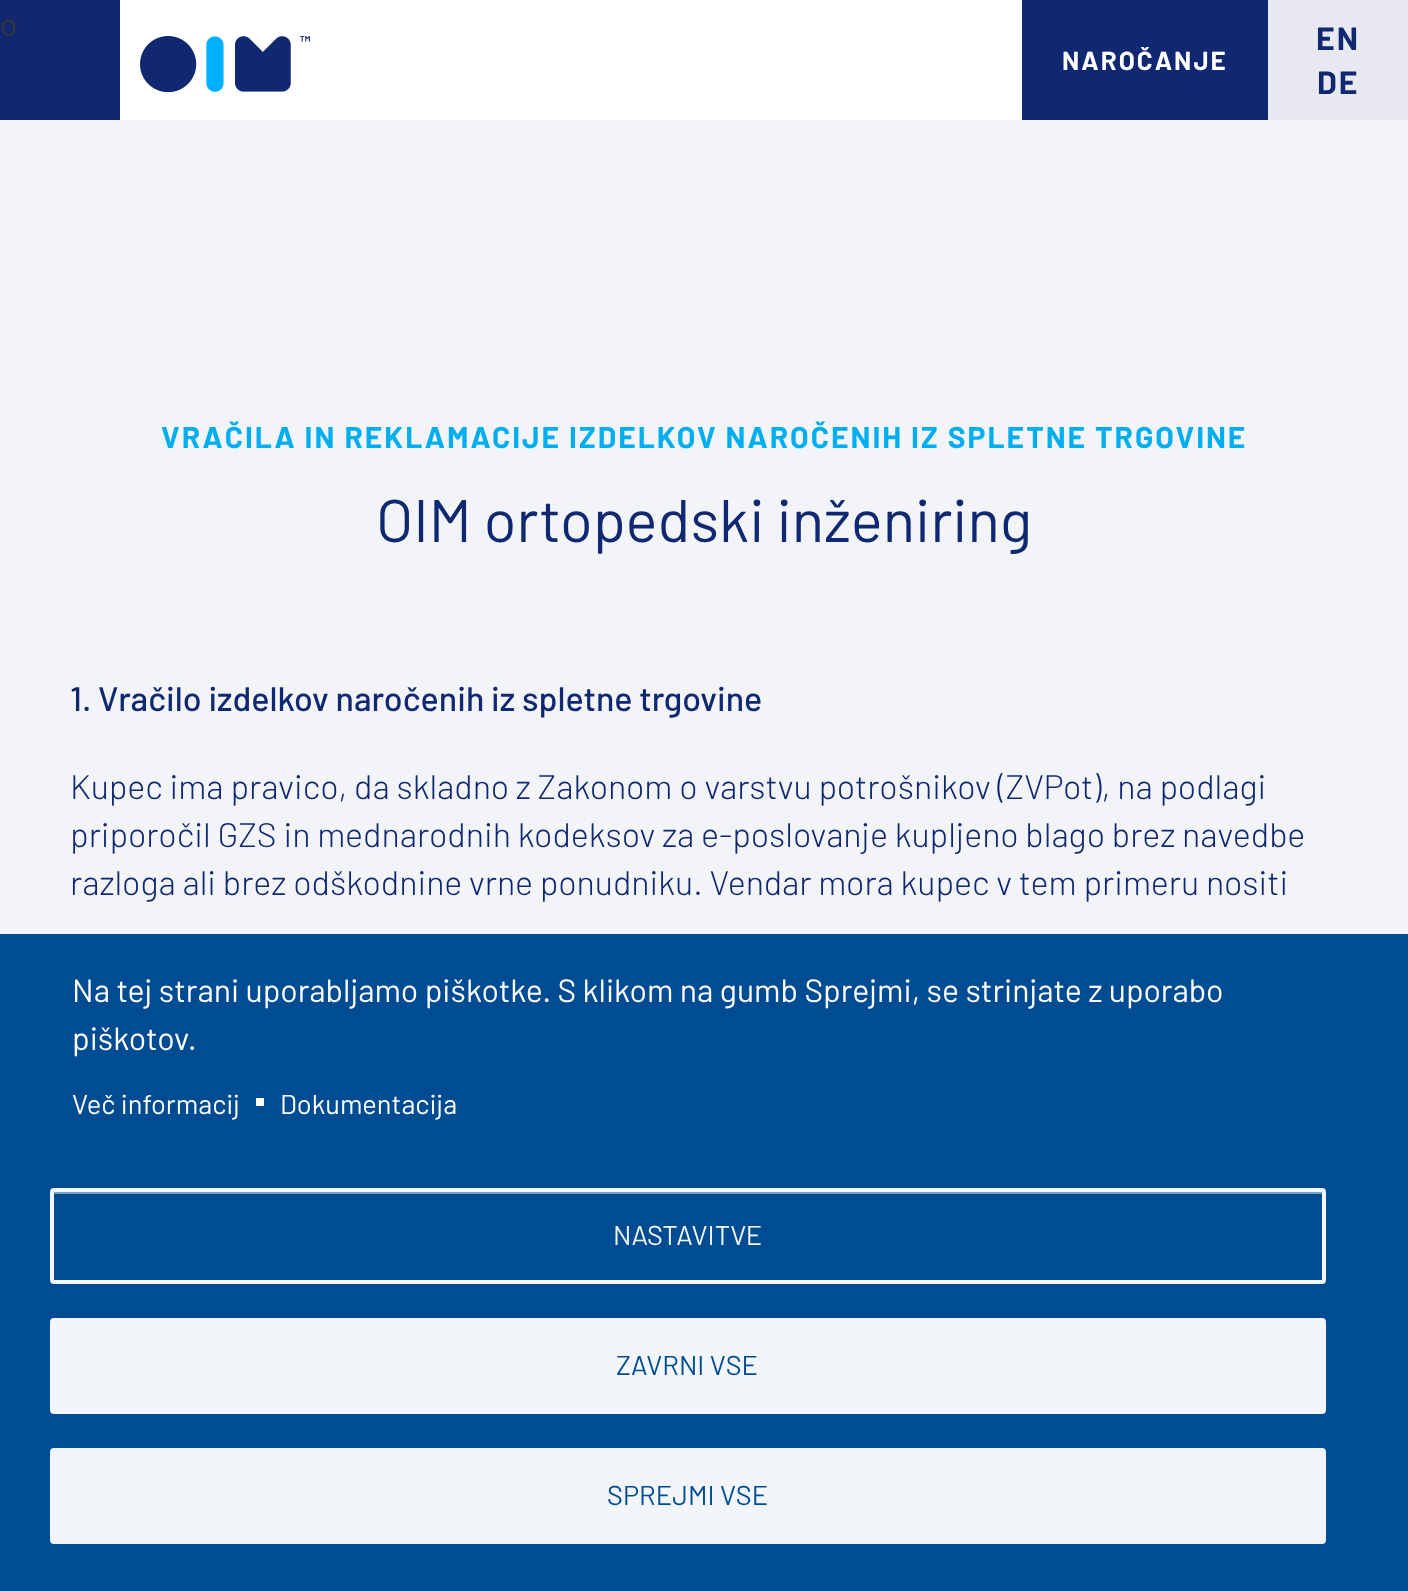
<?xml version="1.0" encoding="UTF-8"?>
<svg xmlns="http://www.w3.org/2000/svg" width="1408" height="1591">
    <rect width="100%" height="100%" fill="#FFFFFF"/>
    <rect x="0" y="0" width="120" height="120" fill="#102871"/>
    <text x="0" y="36" font-family="Barlow" font-size="32" fill="#363636">o</text>
    <image x="140" y="36" width="170" height="56" href="img_01.png"/>
    <rect x="1022" y="0" width="246" height="120" fill="#102871"/>
    <text x="1062" y="70" font-family="Barlow" font-size="26" font-weight="700" letter-spacing="2" fill="#FFFFFF">NAROČANJE</text>
    <rect x="1268" y="0" width="140" height="120" fill="#E8E9F0"/>
    <text x="1316" y="50" font-family="Barlow" font-size="32" font-weight="700" letter-spacing="2" fill="#102871">EN</text>
    <text x="1317" y="94" font-family="Barlow" font-size="32" font-weight="700" letter-spacing="2" fill="#102871">DE</text>
    <rect x="0" y="120" width="1408" height="814" fill="#F3F4F8"/>
    <text x="161" y="448" font-family="Barlow" font-size="30" font-weight="700" letter-spacing="2" fill="#00AEEF">VRAČILA IN REKLAMACIJE IZDELKOV NAROČENIH IZ SPLETNE TRGOVINE</text>
    <text x="376" y="542" font-family="Barlow" font-size="60" fill="#102871">OIM ortopedski inženiring</text>
    <text x="70" y="711" font-family="Barlow" font-size="34" font-weight="500" fill="#102871">1. Vračilo izdelkov naročenih iz spletne trgovine</text>
    <text font-family="Barlow" font-size="34" font-weight="300" fill="#102871">
        <tspan x="70" y="799">Kupec ima pravico, da skladno z Zakonom o varstvu potrošnikov (ZVPot), na podlagi</tspan>
        <tspan x="70" y="847">priporočil GZS in mednarodnih kodeksov za e-poslovanje kupljeno blago brez navedbe</tspan>
        <tspan x="70" y="895">razloga ali brez odškodnine vrne ponudniku. Vendar mora kupec v tem primeru nositi</tspan>
    </text>
    <rect x="0" y="934" width="1408" height="657" fill="#004C93"/>
    <text font-family="Barlow" font-size="32" fill="#FFFFFF">
        <tspan x="72" y="1002">Na tej strani uporabljamo piškotke. S klikom na gumb Sprejmi, se strinjate z uporabo</tspan>
        <tspan x="72" y="1050">piškotov.</tspan>
    </text>
    <text x="72" y="1114" font-family="Barlow" font-size="27.25" fill="#FFFFFF">Več informacij</text>
    <rect x="256" y="1098" width="8" height="8" fill="#FFFFFF"/>
    <text x="280" y="1114" font-family="Barlow" font-size="27.25" fill="#FFFFFF">Dokumentacija</text>
    <rect x="54" y="1192" width="1268" height="2" fill="#79A1C7"/>
    <rect x="52" y="1190" width="1272" height="92" rx="2" fill="none" stroke="#F2F6FA" stroke-width="4"/>
    <text x="613" y="1245" font-family="Barlow" font-size="27.25" fill="#F2F6FA">NASTAVITVE</text>
    <rect x="52" y="1320" width="1272" height="92" rx="2" fill="#F2F6FA" stroke="#F2F6FA" stroke-width="4"/>
    <text x="616" y="1375" font-family="Barlow" font-size="27.25" fill="#004C93">ZAVRNI VSE</text>
    <rect x="52" y="1450" width="1272" height="92" rx="2" fill="#F2F6FA" stroke="#F2F6FA" stroke-width="4"/>
    <text x="607" y="1505" font-family="Barlow" font-size="27.25" fill="#004C93">SPREJMI VSE</text>
</svg>
